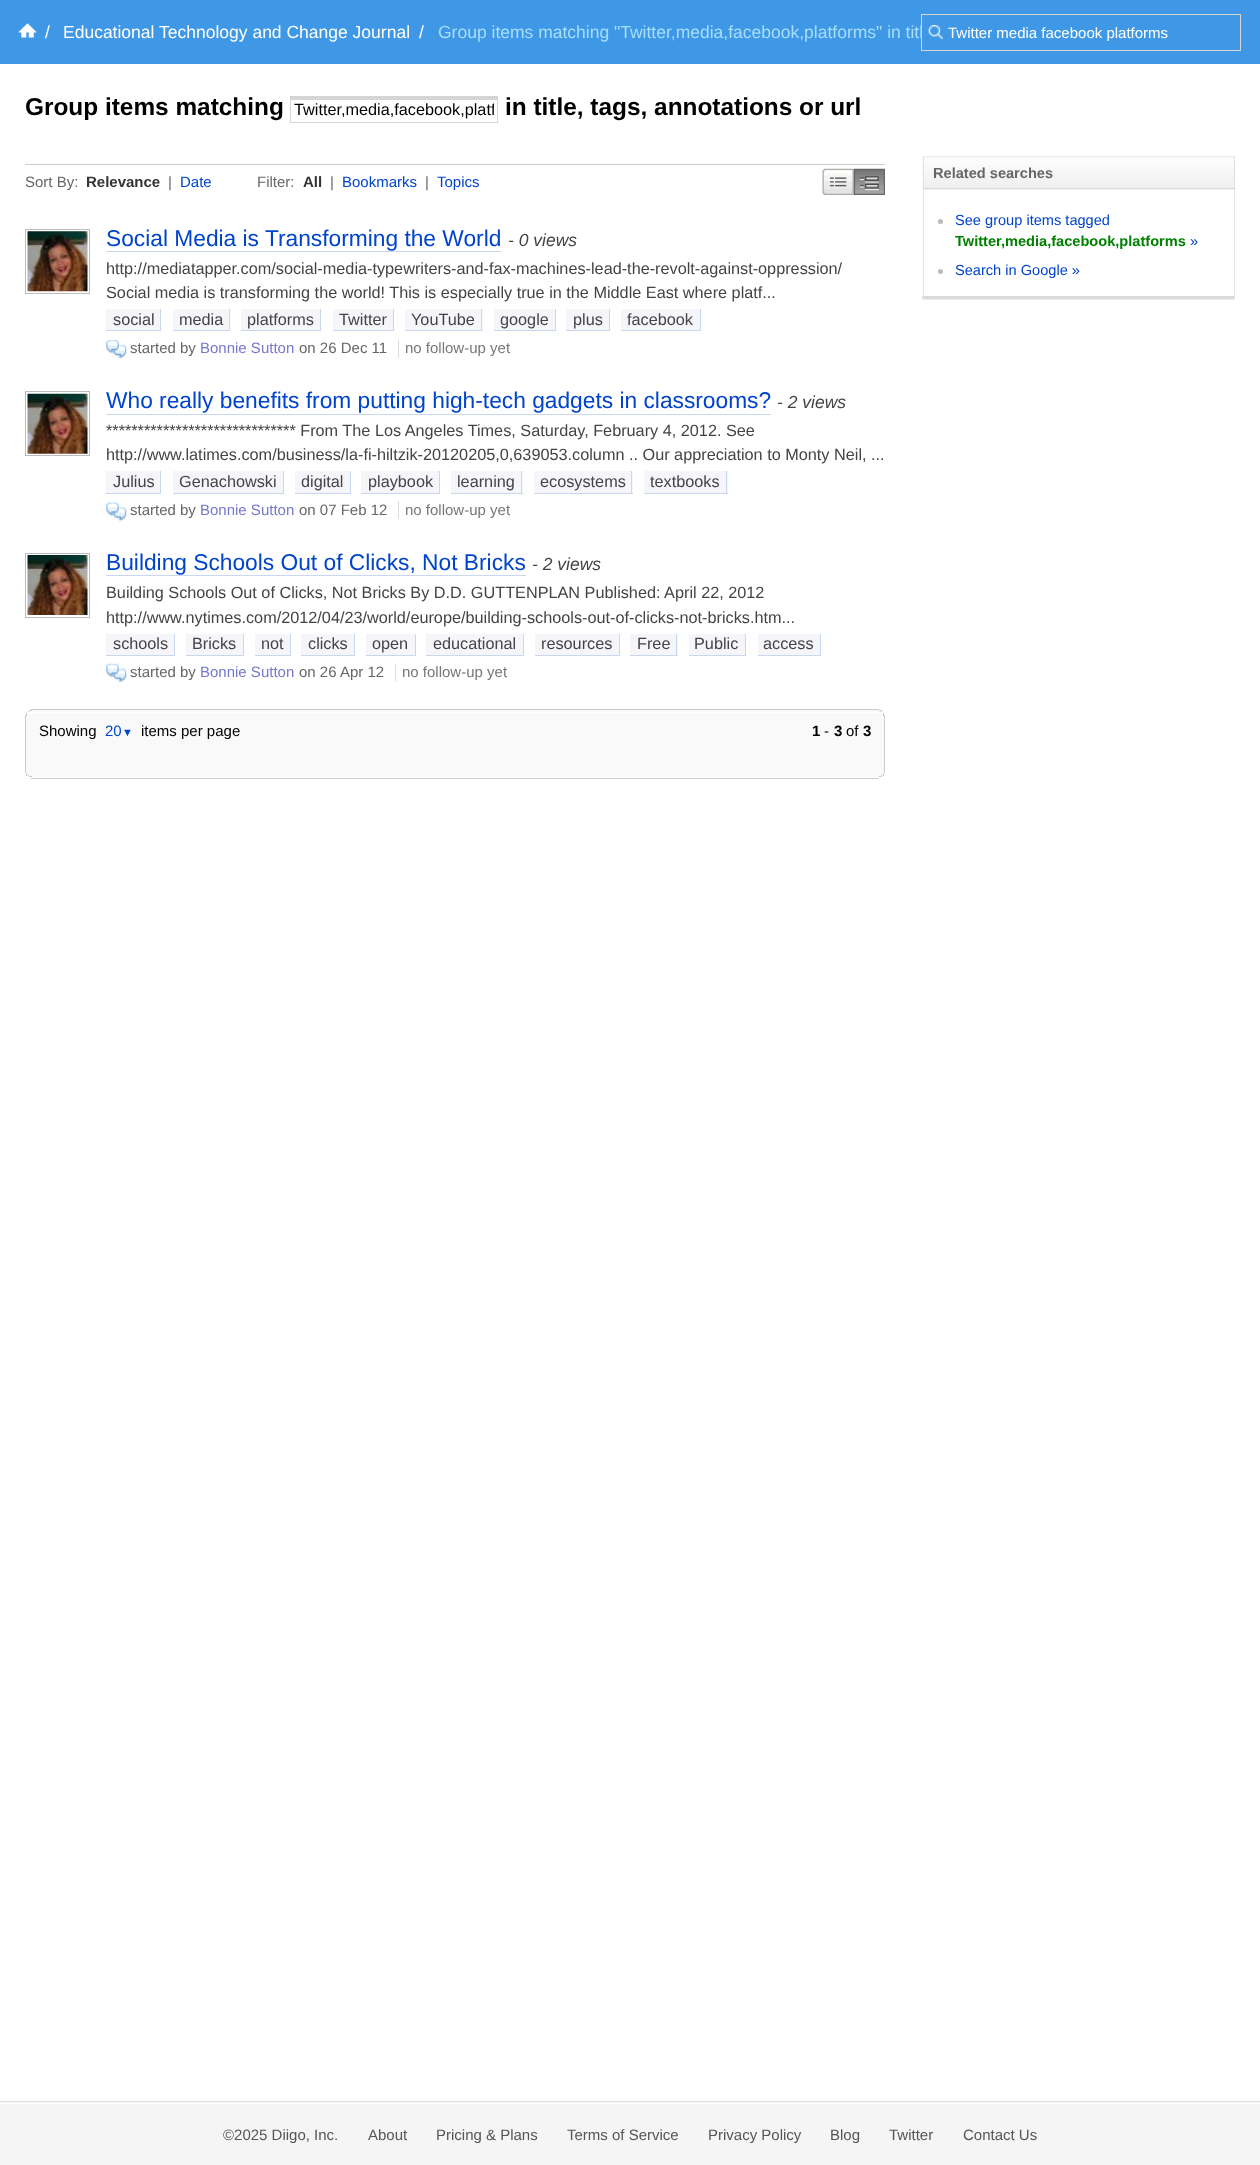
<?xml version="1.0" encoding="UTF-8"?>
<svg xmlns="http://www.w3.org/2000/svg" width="1260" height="2165">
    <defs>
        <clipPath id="clip1"><rect x="294" y="100" width="200" height="19"/></clipPath>
    </defs>
    <rect width="100%" height="100%" fill="#FFFFFF"/>
    <rect x="0" y="0" width="1260" height="64" fill="#3F98E5"/>
    <image x="18" y="23" width="19" height="15" href="img_01.png"/>
    <text x="45" y="38" font-family="Liberation Sans" font-size="17.5" fill="#FFFFFF">/</text>
    <text x="63" y="38" font-family="Liberation Sans" font-size="17.5" fill="#FFFFFF">Educational Technology and Change Journal</text>
    <text x="419" y="38" font-family="Liberation Sans" font-size="17.5" fill="#FFFFFF">/</text>
    <text x="438" y="38" font-family="Liberation Sans" font-size="17.5" fill="#A7DEFF">Group items matching "Twitter,media,facebook,platforms" in titl</text>
    <image x="928" y="25" width="16" height="15" href="img_02.png"/>
    <rect x="921.5" y="14.5" width="319" height="36" fill="none" stroke="#D5D5D5"/>
    <text x="948" y="38" font-family="Liberation Sans" font-size="15" fill="#FFFFFF">Twitter media facebook platforms</text>
    <text x="25" y="115" font-family="Liberation Sans" font-size="24.4" font-weight="700" fill="#000000">Group items matching</text>
    <rect x="290" y="97" width="208" height="3" fill="#D5D5D5"/>
    <rect x="290.5" y="96.5" width="207" height="26" fill="none" stroke="#D5D5D5"/>
    <g clip-path="url(#clip1)">
        <text x="294" y="115" font-family="Liberation Sans" font-size="16.25" fill="#000000">Twitter,media,facebook,platf</text>
    </g>
    <text x="505" y="115" font-family="Liberation Sans" font-size="24.4" font-weight="700" fill="#000000">in title, tags, annotations or url</text>
    <rect x="25" y="164" width="860" height="1" fill="#CCCCCC"/>
    <text x="25" y="187" font-family="Liberation Sans" font-size="15" fill="#666666">Sort By:</text>
    <text x="86" y="187" font-family="Liberation Sans" font-size="15" font-weight="700" fill="#333333">Relevance</text>
    <text x="168" y="187" font-family="Liberation Sans" font-size="15" fill="#666666">|</text>
    <text x="180" y="187" font-family="Liberation Sans" font-size="15" fill="#0044CC">Date</text>
    <text x="257" y="187" font-family="Liberation Sans" font-size="15" fill="#666666">Filter:</text>
    <text x="303" y="187" font-family="Liberation Sans" font-size="15" font-weight="700" fill="#333333">All</text>
    <text x="330" y="187" font-family="Liberation Sans" font-size="15" fill="#666666">|</text>
    <text x="342" y="187" font-family="Liberation Sans" font-size="15" fill="#0044CC">Bookmarks</text>
    <text x="425" y="187" font-family="Liberation Sans" font-size="15" fill="#666666">|</text>
    <text x="437" y="187" font-family="Liberation Sans" font-size="15" fill="#0044CC">Topics</text>
    <image x="822" y="168" width="32" height="27" href="img_03.png"/>
    <image x="853" y="168" width="32" height="27" href="img_04.png"/>
    <rect x="25.5" y="229.5" width="64" height="64" fill="none" stroke="#BBBBBB"/>
    <image x="27" y="231" width="61" height="61" href="img_05.png"/>
    <text x="106" y="246" font-family="Liberation Sans" font-size="22.75" fill="#0044CC">Social Media is Transforming the World</text>
    <rect x="106" y="251" width="395" height="1" fill="#C9D7F1"/>
    <text x="508" y="246" font-family="Liberation Sans" font-size="17.5" font-style="italic" fill="#444444">- 0 views</text>
    <text font-family="Liberation Sans" font-size="16.25" fill="#444444">
        <tspan x="106" y="274">http://mediatapper.com/social-media-typewriters-and-fax-machines-lead-the-revolt-against-oppression/</tspan>
        <tspan x="106" y="298">Social media is transforming the world! This is especially true in the Middle East where platf...</tspan>
    </text>
    <rect x="106" y="309" width="54" height="21" fill="#F5F5FA"/>
    <text x="113" y="325" font-family="Liberation Sans" font-size="16.25" fill="#444444">social</text>
    <rect x="160" y="309" width="1" height="22" fill="#C9D7F1"/>
    <rect x="106" y="330" width="55" height="1" fill="#C9D7F1"/>
    <rect x="173" y="309" width="56" height="21" fill="#F5F5FA"/>
    <text x="179" y="325" font-family="Liberation Sans" font-size="16.25" fill="#444444">media</text>
    <rect x="229" y="309" width="1" height="22" fill="#C9D7F1"/>
    <rect x="173" y="330" width="57" height="1" fill="#C9D7F1"/>
    <rect x="241" y="309" width="79" height="21" fill="#F5F5FA"/>
    <text x="247" y="325" font-family="Liberation Sans" font-size="16.25" fill="#444444">platforms</text>
    <rect x="320" y="309" width="1" height="22" fill="#C9D7F1"/>
    <rect x="241" y="330" width="80" height="1" fill="#C9D7F1"/>
    <rect x="333" y="309" width="60" height="21" fill="#F5F5FA"/>
    <text x="339" y="325" font-family="Liberation Sans" font-size="16.25" fill="#444444">Twitter</text>
    <rect x="393" y="309" width="1" height="22" fill="#C9D7F1"/>
    <rect x="333" y="330" width="61" height="1" fill="#C9D7F1"/>
    <rect x="405" y="309" width="78" height="21" fill="#F5F5FA"/>
    <text x="411" y="325" font-family="Liberation Sans" font-size="16.25" fill="#444444">YouTube</text>
    <rect x="481" y="309" width="1" height="22" fill="#C9D7F1"/>
    <rect x="405" y="330" width="78" height="1" fill="#C9D7F1"/>
    <rect x="494" y="309" width="61" height="21" fill="#F5F5FA"/>
    <text x="500" y="325" font-family="Liberation Sans" font-size="16.25" fill="#444444">google</text>
    <rect x="555" y="309" width="1" height="22" fill="#C9D7F1"/>
    <rect x="494" y="330" width="62" height="1" fill="#C9D7F1"/>
    <rect x="566" y="309" width="43" height="21" fill="#F5F5FA"/>
    <text x="573" y="325" font-family="Liberation Sans" font-size="16.25" fill="#444444">plus</text>
    <rect x="609" y="309" width="1" height="22" fill="#C9D7F1"/>
    <rect x="566" y="330" width="44" height="1" fill="#C9D7F1"/>
    <rect x="621" y="309" width="79" height="21" fill="#F5F5FA"/>
    <text x="627" y="325" font-family="Liberation Sans" font-size="16.25" fill="#444444">facebook</text>
    <rect x="700" y="309" width="1" height="22" fill="#C9D7F1"/>
    <rect x="621" y="330" width="80" height="1" fill="#C9D7F1"/>
    <image x="106" y="340" width="21" height="19" href="img_06.png"/>
    <text x="130" y="353" font-family="Liberation Sans" font-size="15" fill="#666666">started by</text>
    <text x="200" y="353" font-family="Liberation Sans" font-size="15" fill="#7777CC">Bonnie Sutton</text>
    <text x="299" y="353" font-family="Liberation Sans" font-size="15" fill="#666666">on 26 Dec 11</text>
    <text x="405" y="353" font-family="Liberation Sans" font-size="15" fill="#777777">no follow-up yet</text>
    <rect x="398" y="340" width="1" height="18" fill="#DDDDDD"/>
    <rect x="25.5" y="391.5" width="64" height="64" fill="none" stroke="#BBBBBB"/>
    <image x="27" y="393" width="61" height="61" href="img_07.png"/>
    <text x="106" y="408" font-family="Liberation Sans" font-size="22.75" fill="#0044CC">Who really benefits from putting high-tech gadgets in classrooms?</text>
    <rect x="106" y="414" width="665" height="1" fill="#C9D7F1"/>
    <text x="777" y="408" font-family="Liberation Sans" font-size="17.5" font-style="italic" fill="#444444">- 2 views</text>
    <text font-family="Liberation Sans" font-size="16.25" fill="#444444">
        <tspan x="106" y="436">****************************** From The Los Angeles Times, Saturday, February 4, 2012. See</tspan>
        <tspan x="106" y="460">http://www.latimes.com/business/la-fi-hiltzik-20120205,0,639053.column .. Our appreciation to Monty Neil, ...</tspan>
    </text>
    <rect x="106" y="471" width="54" height="22" fill="#F5F5FA"/>
    <text x="113" y="487" font-family="Liberation Sans" font-size="16.25" fill="#444444">Julius</text>
    <rect x="160" y="471" width="1" height="23" fill="#C9D7F1"/>
    <rect x="106" y="493" width="55" height="1" fill="#C9D7F1"/>
    <rect x="173" y="471" width="110" height="22" fill="#F5F5FA"/>
    <text x="179" y="487" font-family="Liberation Sans" font-size="16.25" fill="#444444">Genachowski</text>
    <rect x="283" y="471" width="1" height="23" fill="#C9D7F1"/>
    <rect x="173" y="493" width="111" height="1" fill="#C9D7F1"/>
    <rect x="295" y="471" width="55" height="22" fill="#F5F5FA"/>
    <text x="301" y="487" font-family="Liberation Sans" font-size="16.25" fill="#444444">digital</text>
    <rect x="350" y="471" width="1" height="23" fill="#C9D7F1"/>
    <rect x="295" y="493" width="56" height="1" fill="#C9D7F1"/>
    <rect x="361" y="471" width="78" height="22" fill="#F5F5FA"/>
    <text x="368" y="487" font-family="Liberation Sans" font-size="16.25" fill="#444444">playbook</text>
    <rect x="439" y="471" width="1" height="23" fill="#C9D7F1"/>
    <rect x="361" y="493" width="79" height="1" fill="#C9D7F1"/>
    <rect x="451" y="471" width="72" height="22" fill="#F5F5FA"/>
    <text x="457" y="487" font-family="Liberation Sans" font-size="16.25" fill="#444444">learning</text>
    <rect x="521" y="471" width="1" height="23" fill="#C9D7F1"/>
    <rect x="451" y="493" width="72" height="1" fill="#C9D7F1"/>
    <rect x="534" y="471" width="99" height="22" fill="#F5F5FA"/>
    <text x="540" y="487" font-family="Liberation Sans" font-size="16.25" fill="#444444">ecosystems</text>
    <rect x="631" y="471" width="1" height="23" fill="#C9D7F1"/>
    <rect x="534" y="493" width="99" height="1" fill="#C9D7F1"/>
    <rect x="644" y="471" width="84" height="22" fill="#F5F5FA"/>
    <text x="650" y="487" font-family="Liberation Sans" font-size="16.25" fill="#444444">textbooks</text>
    <rect x="726" y="471" width="1" height="23" fill="#C9D7F1"/>
    <rect x="644" y="493" width="84" height="1" fill="#C9D7F1"/>
    <image x="106" y="502" width="21" height="20" href="img_08.png"/>
    <text x="130" y="515" font-family="Liberation Sans" font-size="15" fill="#666666">started by</text>
    <text x="200" y="515" font-family="Liberation Sans" font-size="15" fill="#7777CC">Bonnie Sutton</text>
    <text x="299" y="515" font-family="Liberation Sans" font-size="15" fill="#666666">on 07 Feb 12</text>
    <text x="405" y="515" font-family="Liberation Sans" font-size="15" fill="#777777">no follow-up yet</text>
    <rect x="398" y="501" width="1" height="18" fill="#DDDDDD"/>
    <rect x="25.5" y="553.5" width="64" height="64" fill="none" stroke="#BBBBBB"/>
    <image x="27" y="555" width="61" height="60" href="img_09.png"/>
    <text x="106" y="570" font-family="Liberation Sans" font-size="22.75" fill="#0044CC">Building Schools Out of Clicks, Not Bricks</text>
    <rect x="106" y="575" width="420" height="1" fill="#C9D7F1"/>
    <text x="532" y="570" font-family="Liberation Sans" font-size="17.5" font-style="italic" fill="#444444">- 2 views</text>
    <text font-family="Liberation Sans" font-size="16.25" fill="#444444">
        <tspan x="106" y="598">Building Schools Out of Clicks, Not Bricks By D.D. GUTTENPLAN Published: April 22, 2012</tspan>
        <tspan x="106" y="623">http://www.nytimes.com/2012/04/23/world/europe/building-schools-out-of-clicks-not-bricks.htm...</tspan>
    </text>
    <rect x="106" y="634" width="68" height="21" fill="#F5F5FA"/>
    <text x="113" y="649" font-family="Liberation Sans" font-size="16.25" fill="#444444">schools</text>
    <rect x="174" y="634" width="1" height="22" fill="#C9D7F1"/>
    <rect x="106" y="655" width="69" height="1" fill="#C9D7F1"/>
    <rect x="186" y="634" width="57" height="21" fill="#F5F5FA"/>
    <text x="192" y="649" font-family="Liberation Sans" font-size="16.25" fill="#444444">Bricks</text>
    <rect x="243" y="634" width="1" height="22" fill="#C9D7F1"/>
    <rect x="186" y="655" width="58" height="1" fill="#C9D7F1"/>
    <rect x="255" y="634" width="35" height="21" fill="#F5F5FA"/>
    <text x="261" y="649" font-family="Liberation Sans" font-size="16.25" fill="#444444">not</text>
    <rect x="290" y="634" width="1" height="22" fill="#C9D7F1"/>
    <rect x="255" y="655" width="36" height="1" fill="#C9D7F1"/>
    <rect x="301" y="634" width="53" height="21" fill="#F5F5FA"/>
    <text x="308" y="649" font-family="Liberation Sans" font-size="16.25" fill="#444444">clicks</text>
    <rect x="354" y="634" width="1" height="22" fill="#C9D7F1"/>
    <rect x="301" y="655" width="54" height="1" fill="#C9D7F1"/>
    <rect x="366" y="634" width="49" height="21" fill="#F5F5FA"/>
    <text x="372" y="649" font-family="Liberation Sans" font-size="16.25" fill="#444444">open</text>
    <rect x="415" y="634" width="1" height="22" fill="#C9D7F1"/>
    <rect x="366" y="655" width="50" height="1" fill="#C9D7F1"/>
    <rect x="426" y="634" width="97" height="21" fill="#F5F5FA"/>
    <text x="433" y="649" font-family="Liberation Sans" font-size="16.25" fill="#444444">educational</text>
    <rect x="523" y="634" width="1" height="22" fill="#C9D7F1"/>
    <rect x="426" y="655" width="98" height="1" fill="#C9D7F1"/>
    <rect x="535" y="634" width="84" height="21" fill="#F5F5FA"/>
    <text x="541" y="649" font-family="Liberation Sans" font-size="16.25" fill="#444444">resources</text>
    <rect x="619" y="634" width="1" height="22" fill="#C9D7F1"/>
    <rect x="535" y="655" width="85" height="1" fill="#C9D7F1"/>
    <rect x="630" y="634" width="48" height="21" fill="#F5F5FA"/>
    <text x="637" y="649" font-family="Liberation Sans" font-size="16.25" fill="#444444">Free</text>
    <rect x="676" y="634" width="1" height="22" fill="#C9D7F1"/>
    <rect x="630" y="655" width="48" height="1" fill="#C9D7F1"/>
    <rect x="689" y="634" width="56" height="21" fill="#F5F5FA"/>
    <text x="694" y="649" font-family="Liberation Sans" font-size="16.25" fill="#444444">Public</text>
    <rect x="745" y="634" width="1" height="22" fill="#C9D7F1"/>
    <rect x="689" y="655" width="57" height="1" fill="#C9D7F1"/>
    <rect x="758" y="634" width="62" height="21" fill="#F5F5FA"/>
    <text x="763" y="649" font-family="Liberation Sans" font-size="16.25" fill="#444444">access</text>
    <rect x="820" y="634" width="1" height="22" fill="#C9D7F1"/>
    <rect x="758" y="655" width="63" height="1" fill="#C9D7F1"/>
    <image x="106" y="663" width="21" height="20" href="img_10.png"/>
    <text x="130" y="677" font-family="Liberation Sans" font-size="15" fill="#666666">started by</text>
    <text x="200" y="677" font-family="Liberation Sans" font-size="15" fill="#7777CC">Bonnie Sutton</text>
    <text x="299" y="677" font-family="Liberation Sans" font-size="15" fill="#666666">on 26 Apr 12</text>
    <text x="402" y="677" font-family="Liberation Sans" font-size="15" fill="#777777">no follow-up yet</text>
    <rect x="395" y="664" width="1" height="17" fill="#DDDDDD"/>
    <rect x="31" y="709" width="848" height="1" fill="#CCCCCC"/>
    <rect x="29" y="710" width="852" height="1" fill="#F9F9F9"/>
    <rect x="879" y="710" width="3" height="1" fill="#CCCCCC"/>
    <rect x="29" y="710" width="3" height="1" fill="#CCCCCC"/>
    <rect x="28" y="711" width="855" height="1" fill="#F9F9F9"/>
    <rect x="881" y="711" width="1" height="1" fill="#CCCCCC"/>
    <rect x="28" y="711" width="1" height="1" fill="#CCCCCC"/>
    <rect x="26" y="713" width="858" height="63" fill="#F9F9F9"/>
    <rect x="883" y="713" width="1" height="3" fill="#CCCCCC"/>
    <rect x="26" y="713" width="1" height="3" fill="#CCCCCC"/>
    <rect x="884" y="715" width="1" height="58" fill="#CCCCCC"/>
    <rect x="25" y="715" width="1" height="58" fill="#CCCCCC"/>
    <text x="39" y="736" font-family="Liberation Sans" font-size="15" fill="#000000">Showing</text>
    <text x="105" y="736" font-family="Liberation Sans" font-size="15" fill="#0044CC">20</text>
    <text x="122" y="736" font-family="Liberation Sans" font-size="11" font-weight="700" fill="#0044CC">▼</text>
    <text x="141" y="736" font-family="Liberation Sans" font-size="15" fill="#000000">items per page</text>
    <text x="812" y="736" font-family="Liberation Sans" font-size="15" font-weight="700" fill="#000000">1</text>
    <text x="824" y="736" font-family="Liberation Sans" font-size="15" fill="#000000">-</text>
    <text x="834" y="736" font-family="Liberation Sans" font-size="15" font-weight="700" fill="#000000">3</text>
    <text x="846" y="736" font-family="Liberation Sans" font-size="15" fill="#000000">of</text>
    <text x="863" y="736" font-family="Liberation Sans" font-size="15" font-weight="700" fill="#000000">3</text>
    <rect x="883" y="773" width="1" height="3" fill="#CCCCCC"/>
    <rect x="26" y="773" width="1" height="3" fill="#CCCCCC"/>
    <rect x="881" y="775" width="1" height="1" fill="#CCCCCC"/>
    <rect x="28" y="775" width="1" height="1" fill="#CCCCCC"/>
    <rect x="29" y="776" width="852" height="1" fill="#F9F9F9"/>
    <rect x="879" y="776" width="3" height="1" fill="#CCCCCC"/>
    <rect x="29" y="776" width="3" height="1" fill="#CCCCCC"/>
    <rect x="31" y="778" width="848" height="1" fill="#CCCCCC"/>
    <rect x="924" y="156" width="310" height="2" fill="#EEEEEE"/>
    <image x="922" y="157" width="312" height="32" href="img_11.png"/>
    <rect x="1234" y="156" width="1" height="33" fill="#E2E2E2"/>
    <rect x="923" y="188" width="312" height="1" fill="#D9D9D9"/>
    <rect x="923" y="156" width="1" height="33" fill="#E2E2E2"/>
    <text x="933" y="178" font-family="Liberation Sans" font-size="14.6" font-weight="700" fill="#666666">Related searches</text>
    <rect x="922" y="296" width="313" height="3" fill="#DADADA"/>
    <rect x="923" y="189" width="312" height="1" fill="#F3F3F3"/>
    <rect x="1234" y="189" width="1" height="111" fill="#E5E5E5"/>
    <rect x="923" y="299" width="312" height="1" fill="#ECECEC"/>
    <rect x="923" y="189" width="1" height="111" fill="#E5E5E5"/>
    <circle cx="940.5" cy="221.5" r="2.5" fill="#BBBBBB"/>
    <text x="955" y="225" font-family="Liberation Sans" font-size="14.6" fill="#0044CC">See group items tagged</text>
    <text x="955" y="246" font-family="Liberation Sans" font-size="14.6" font-weight="700" fill="#008000">Twitter,media,facebook,platforms</text>
    <text x="1190" y="246" font-family="Liberation Sans" font-size="14.6" fill="#0044CC">»</text>
    <circle cx="940.5" cy="271.5" r="2.5" fill="#BBBBBB"/>
    <text x="955" y="275" font-family="Liberation Sans" font-size="14.6" fill="#0044CC">Search in Google »</text>
    <rect x="0" y="2102" width="1260" height="63" fill="#F5F5F5"/>
    <rect x="0" y="2101" width="1260" height="1" fill="#E3E3E3"/>
    <rect x="0" y="2103" width="1260" height="1" fill="#FFFFFF"/>
    <text x="223" y="2140" font-family="Liberation Sans" font-size="15" fill="#555555">©2025 Diigo, Inc.</text>
    <text x="368" y="2140" font-family="Liberation Sans" font-size="15" fill="#555555">About</text>
    <text x="436" y="2140" font-family="Liberation Sans" font-size="15" fill="#555555">Pricing &amp; Plans</text>
    <text x="567" y="2140" font-family="Liberation Sans" font-size="15" fill="#555555">Terms of Service</text>
    <text x="708" y="2140" font-family="Liberation Sans" font-size="15" fill="#555555">Privacy Policy</text>
    <text x="830" y="2140" font-family="Liberation Sans" font-size="15" fill="#555555">Blog</text>
    <text x="889" y="2140" font-family="Liberation Sans" font-size="15" fill="#555555">Twitter</text>
    <text x="963" y="2140" font-family="Liberation Sans" font-size="15" fill="#555555">Contact Us</text>
</svg>
